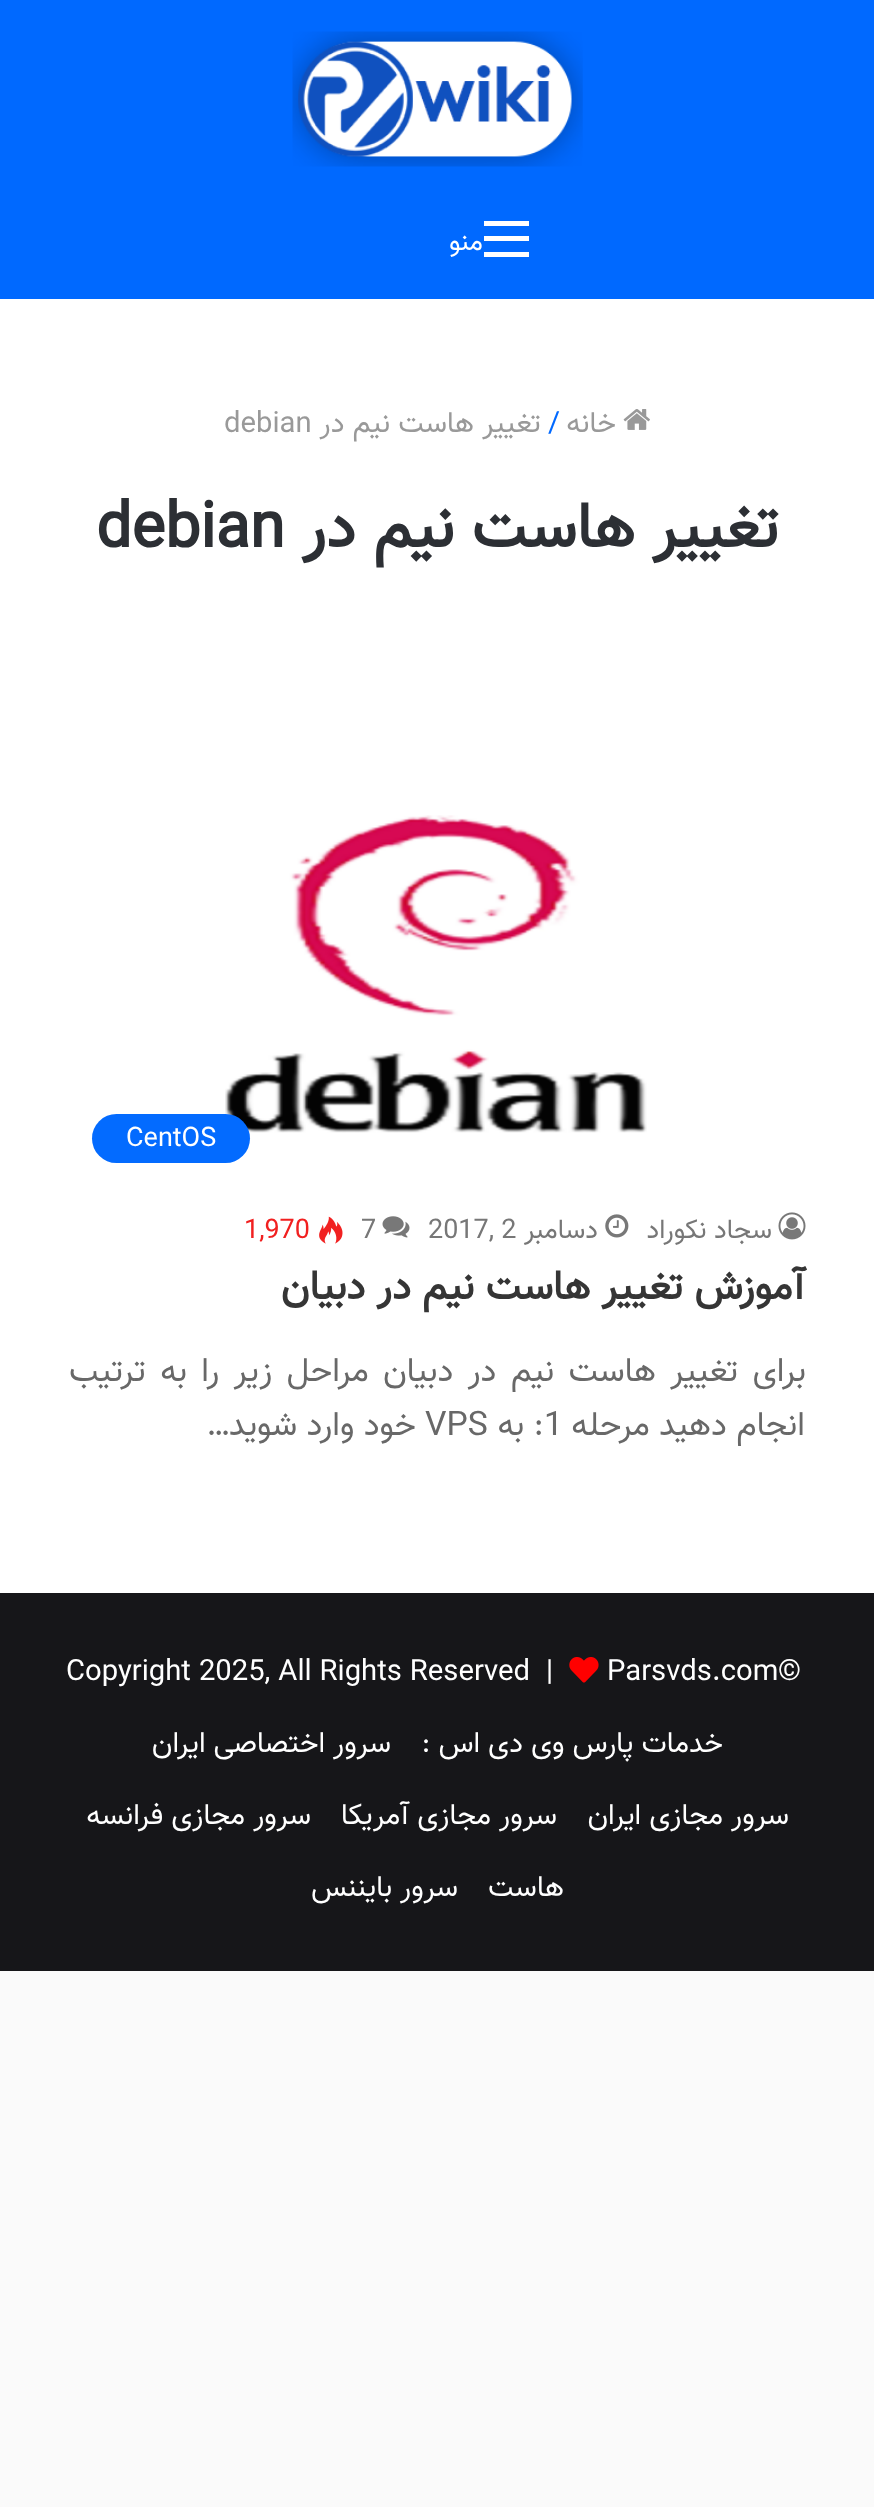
<?xml version="1.0" encoding="UTF-8"?>
<svg xmlns="http://www.w3.org/2000/svg" width="874" height="2507">
    <rect width="100%" height="100%" fill="#FAFAFA"/>
    <rect x="0" y="299" width="874" height="1294" fill="#FFFFFF"/>
    <rect x="0" y="0" width="874" height="299" fill="#0069FF"/>
    <image x="292" y="31" width="291" height="136" href="img_01.png"/>
    <rect x="484" y="236" width="45" height="5" fill="#FFFFFF"/>
    <rect x="484" y="221" width="45" height="5" fill="#FFFFFF"/>
    <rect x="484" y="252" width="45" height="5" fill="#FFFFFF"/>
    <text x="483" y="250" font-family="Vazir" font-size="27" direction="rtl" fill="#FFFFFF">منو</text>
    <image x="623" y="409" width="27" height="21" href="img_02.png"/>
    <text x="616" y="432" font-family="Vazir" font-size="29.25" direction="rtl" fill="#999999">خانه</text>
    <text x="548" y="432" font-family="Vazir" font-size="29.25" fill="#0069FF">/</text>
    <text x="541" y="432" font-family="Vazir" font-size="29.25" direction="rtl" fill="#999999">تغییر هاست نیم در</text>
    <text x="224" y="432" font-family="Vazir" font-size="29.25" fill="#999999">debian</text>
    <text x="779" y="547" font-family="Vazir" font-size="63" font-weight="700" direction="rtl" fill="#2C2F34">تغییر هاست نیم در</text>
    <text x="96" y="547" font-family="Vazir" font-size="63" font-weight="700" fill="#2C2F34">debian</text>
    <image x="225" y="815" width="422" height="318" href="img_03.png"/>
    <rect x="92" y="1114" width="158" height="49" rx="24.5" fill="#036BFF"/>
    <text x="126" y="1146" font-family="Vazir" font-size="27" fill="#FFFFFF">CentOS</text>
    <image x="778" y="1212" width="28" height="28" href="img_04.png"/>
    <text x="772" y="1238" font-family="Vazir" font-size="27" direction="rtl" fill="#777777">سجاد نکوراد</text>
    <image x="605" y="1214" width="24" height="24" href="img_05.png"/>
    <text x="598" y="1238" font-family="Vazir" font-size="27" direction="rtl" fill="#777777">دسامبر</text>
    <text x="428" y="1238" font-family="Vazir" font-size="27" fill="#777777">2017, 2</text>
    <image x="382" y="1216" width="28" height="22" href="img_06.png"/>
    <text x="361" y="1238" font-family="Vazir" font-size="27" fill="#777777">7</text>
    <image x="319" y="1216" width="24" height="28" href="img_07.png"/>
    <text x="244" y="1238" font-family="Vazir" font-size="27" fill="#F12020">1,970</text>
    <text x="805" y="1299" font-family="Vazir" font-size="40.5" font-weight="700" direction="rtl" fill="#353535">آموزش تغییر هاست نیم در دبیان</text>
    <text x="806" y="1381" word-spacing="5" font-family="Vazir" font-size="33.75" direction="rtl" fill="#686868">برای تغییر هاست نیم در دبیان مراحل زیر را به ترتیب</text>
    <text x="805" y="1435" font-family="Vazir" font-size="33.75" direction="rtl" fill="#686868">انجام دهید مرحله</text>
    <text x="544" y="1435" font-family="Vazir" font-size="33.75" fill="#686868">1</text>
    <text x="544" y="1435" font-family="Vazir" font-size="33.75" direction="rtl" fill="#686868">: به</text>
    <text x="425" y="1435" font-family="Vazir" font-size="33.75" fill="#686868">VPS</text>
    <text x="416" y="1435" font-family="Vazir" font-size="33.75" direction="rtl" fill="#686868">خود وارد شوید…</text>
    <rect x="0" y="1593" width="874" height="378" fill="#161619"/>
    <text x="778" y="1680" font-family="Vazir" font-size="29.25" fill="#FFFFFF">©</text>
    <text x="607" y="1680" font-family="Vazir" font-size="29.25" fill="#FFFFFF">Parsvds.com</text>
    <image x="569" y="1657" width="30" height="26" href="img_08.png"/>
    <text x="66" y="1680" font-family="Vazir" font-size="29.25" fill="#FFFFFF" xml:space="preserve">Copyright 2025, All Rights Reserved  |</text>
    <text x="723" y="1752" font-family="Vazir" font-size="29.25" direction="rtl" fill="#FFFFFF">خدمات پارس وی دی اس :</text>
    <text x="391" y="1752" font-family="Vazir" font-size="29.25" direction="rtl" fill="#FFFFFF">سرور اختصاصی ایران</text>
    <text x="789" y="1824" font-family="Vazir" font-size="29.25" direction="rtl" fill="#FFFFFF">سرور مجازی ایران</text>
    <text x="557" y="1824" font-family="Vazir" font-size="29.25" direction="rtl" fill="#FFFFFF">سرور مجازی آمریکا</text>
    <text x="311" y="1824" font-family="Vazir" font-size="29.25" direction="rtl" fill="#FFFFFF">سرور مجازی فرانسه</text>
    <text x="564" y="1896" font-family="Vazir" font-size="29.25" direction="rtl" fill="#FFFFFF">هاست</text>
    <text x="458" y="1896" font-family="Vazir" font-size="29.25" direction="rtl" fill="#FFFFFF">سرور بایننس</text>
</svg>
